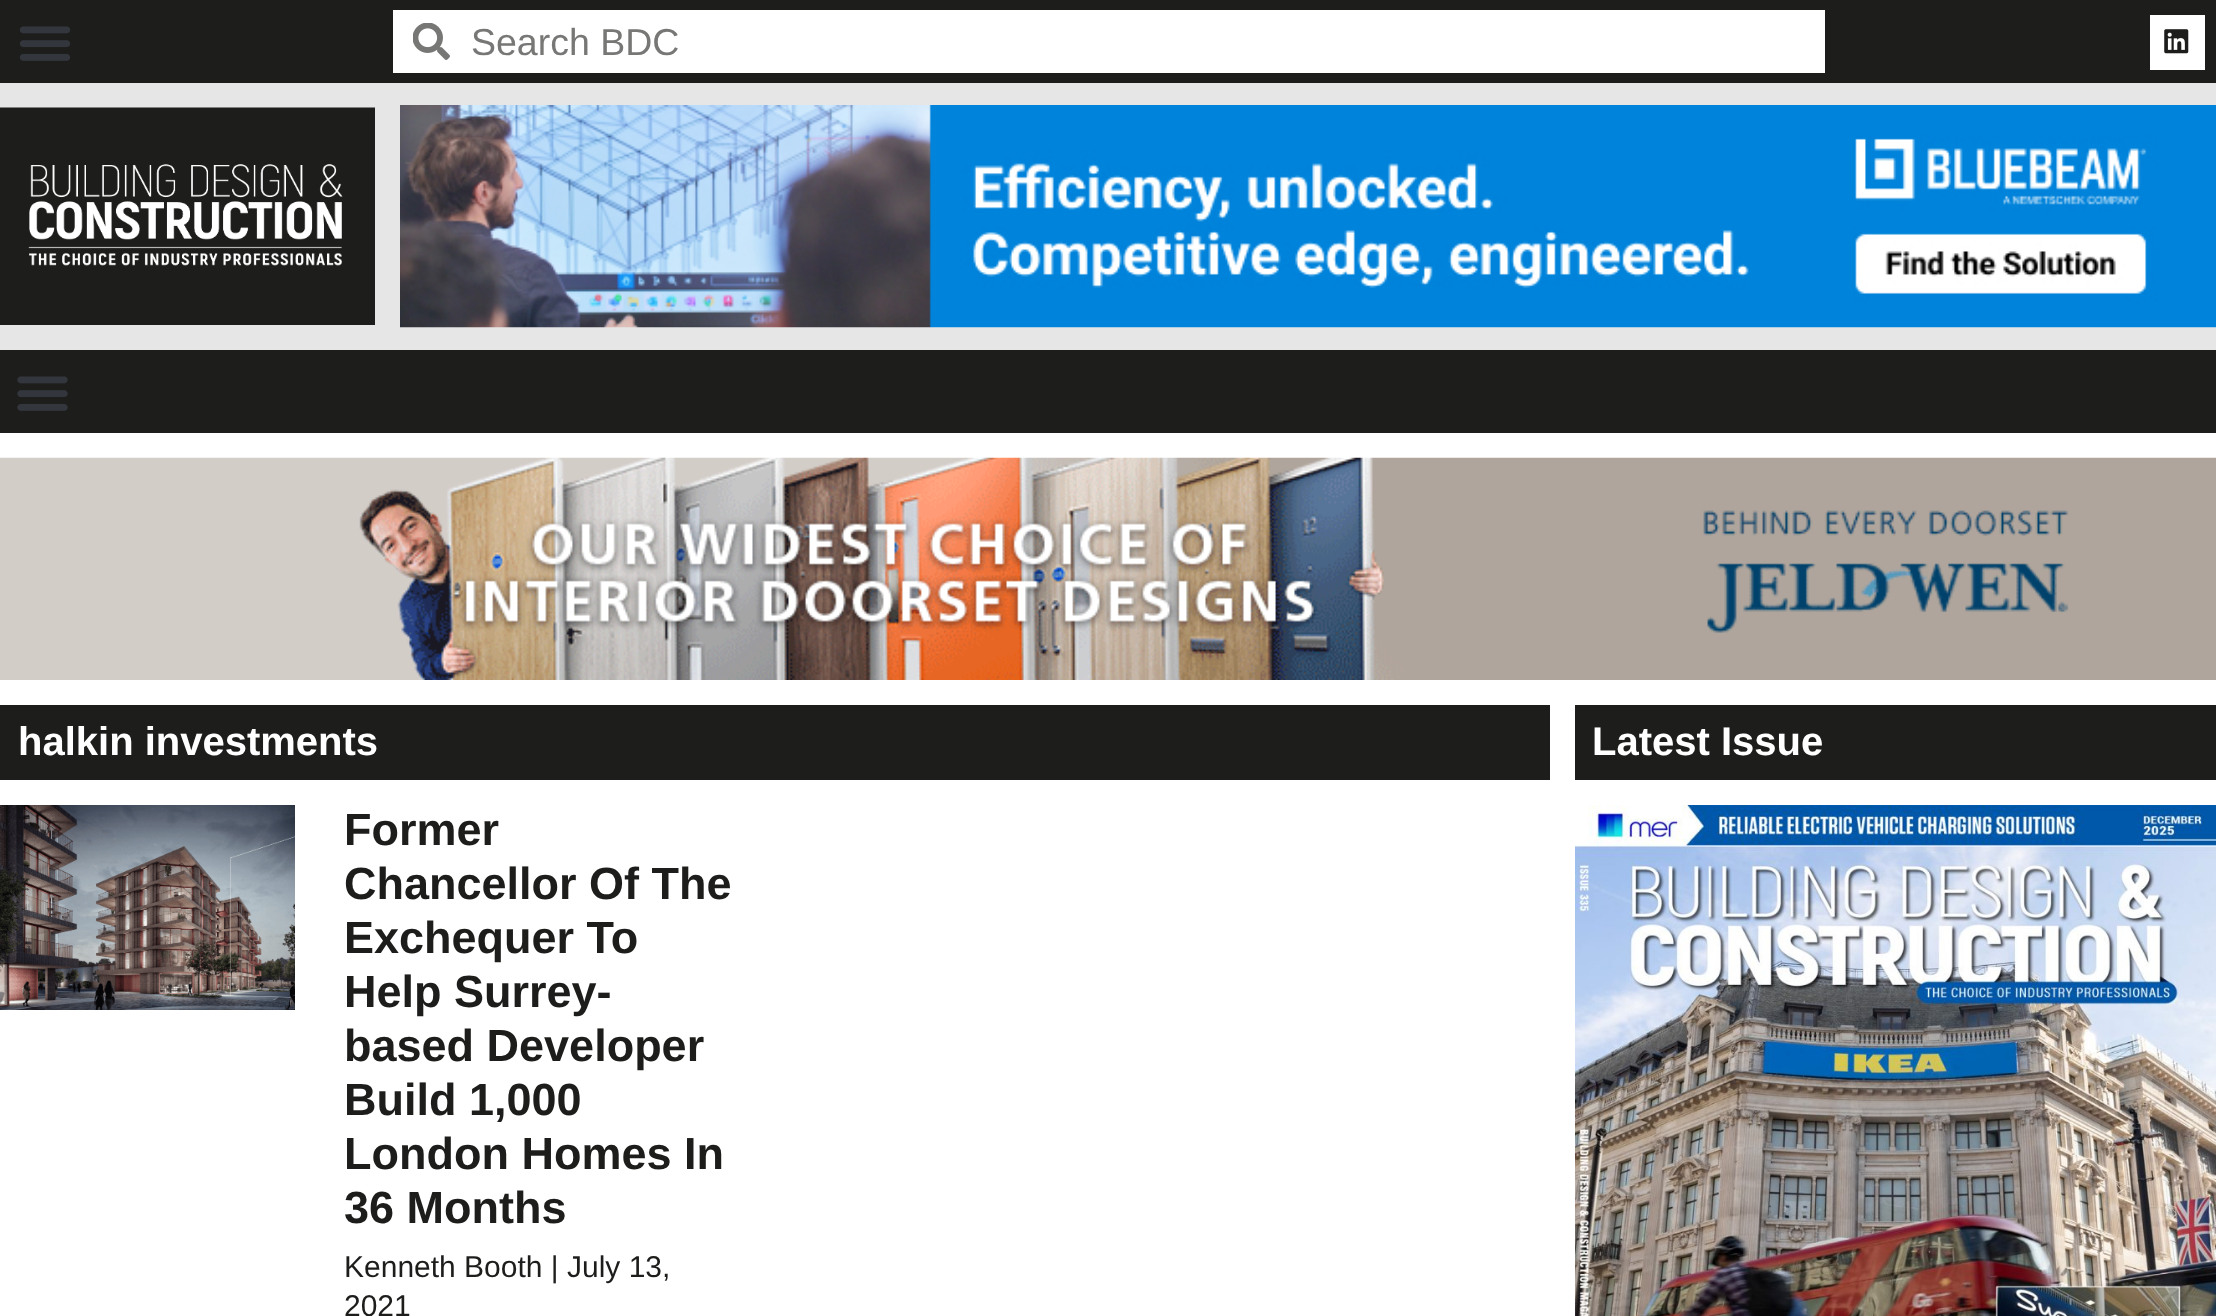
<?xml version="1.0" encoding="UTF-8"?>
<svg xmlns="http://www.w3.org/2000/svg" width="2216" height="1316">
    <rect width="100%" height="100%" fill="#1D1D1B"/>
    <image x="19" y="26" width="52" height="35" href="img_01.png"/>
    <rect x="393" y="10" width="1432" height="63" fill="#FFFFFF"/>
    <image x="413" y="23" width="37" height="37" href="img_02.png"/>
    <text x="471" y="55" font-family="Liberation Sans" font-size="37.5" fill="#777776">Search BDC</text>
    <rect x="2150" y="15" width="55" height="55" fill="#FFFFFF"/>
    <image x="2164" y="29" width="25" height="25" href="img_03.png"/>
    <rect x="0" y="83" width="2216" height="267" fill="#E6E6E6"/>
    <image x="0" y="107" width="375" height="218" href="img_04.png"/>
    <image x="400" y="105" width="1816" height="223" href="img_05.png"/>
    <image x="17" y="376" width="51" height="35" href="img_06.png"/>
    <rect x="0" y="433" width="2216" height="272" fill="#FFFFFF"/>
    <image x="0" y="457" width="2216" height="223" href="img_07.png"/>
    <rect x="0" y="705" width="1575" height="611" fill="#FFFFFF"/>
    <rect x="0" y="705" width="1550" height="75" fill="#1D1D1B"/>
    <text x="18" y="755" font-family="Liberation Sans" font-size="40" font-weight="700" fill="#FFFFFF">halkin investments</text>
    <image x="0" y="805" width="295" height="205" href="img_08.png"/>
    <text font-family="Liberation Sans" font-size="45" font-weight="700" fill="#1D1D1B">
        <tspan x="344" y="845">Former</tspan>
        <tspan x="344" y="899">Chancellor Of The</tspan>
        <tspan x="344" y="953">Exchequer To</tspan>
        <tspan x="344" y="1007">Help Surrey-</tspan>
        <tspan x="344" y="1061">based Developer</tspan>
        <tspan x="344" y="1115">Build 1,000</tspan>
        <tspan x="344" y="1169">London Homes In</tspan>
        <tspan x="344" y="1223">36 Months</tspan>
    </text>
    <text font-family="Liberation Sans" font-size="30" fill="#1D1D1B">
        <tspan x="344" y="1277">Kenneth Booth | July 13,</tspan>
        <tspan x="344" y="1316">2021</tspan>
    </text>
    <rect x="1575" y="780" width="641" height="25" fill="#FFFFFF"/>
    <text x="1592" y="755" font-family="Liberation Sans" font-size="40" font-weight="700" fill="#FFFFFF">Latest Issue</text>
    <image x="1575" y="805" width="641" height="511" href="img_09.png"/>
</svg>
